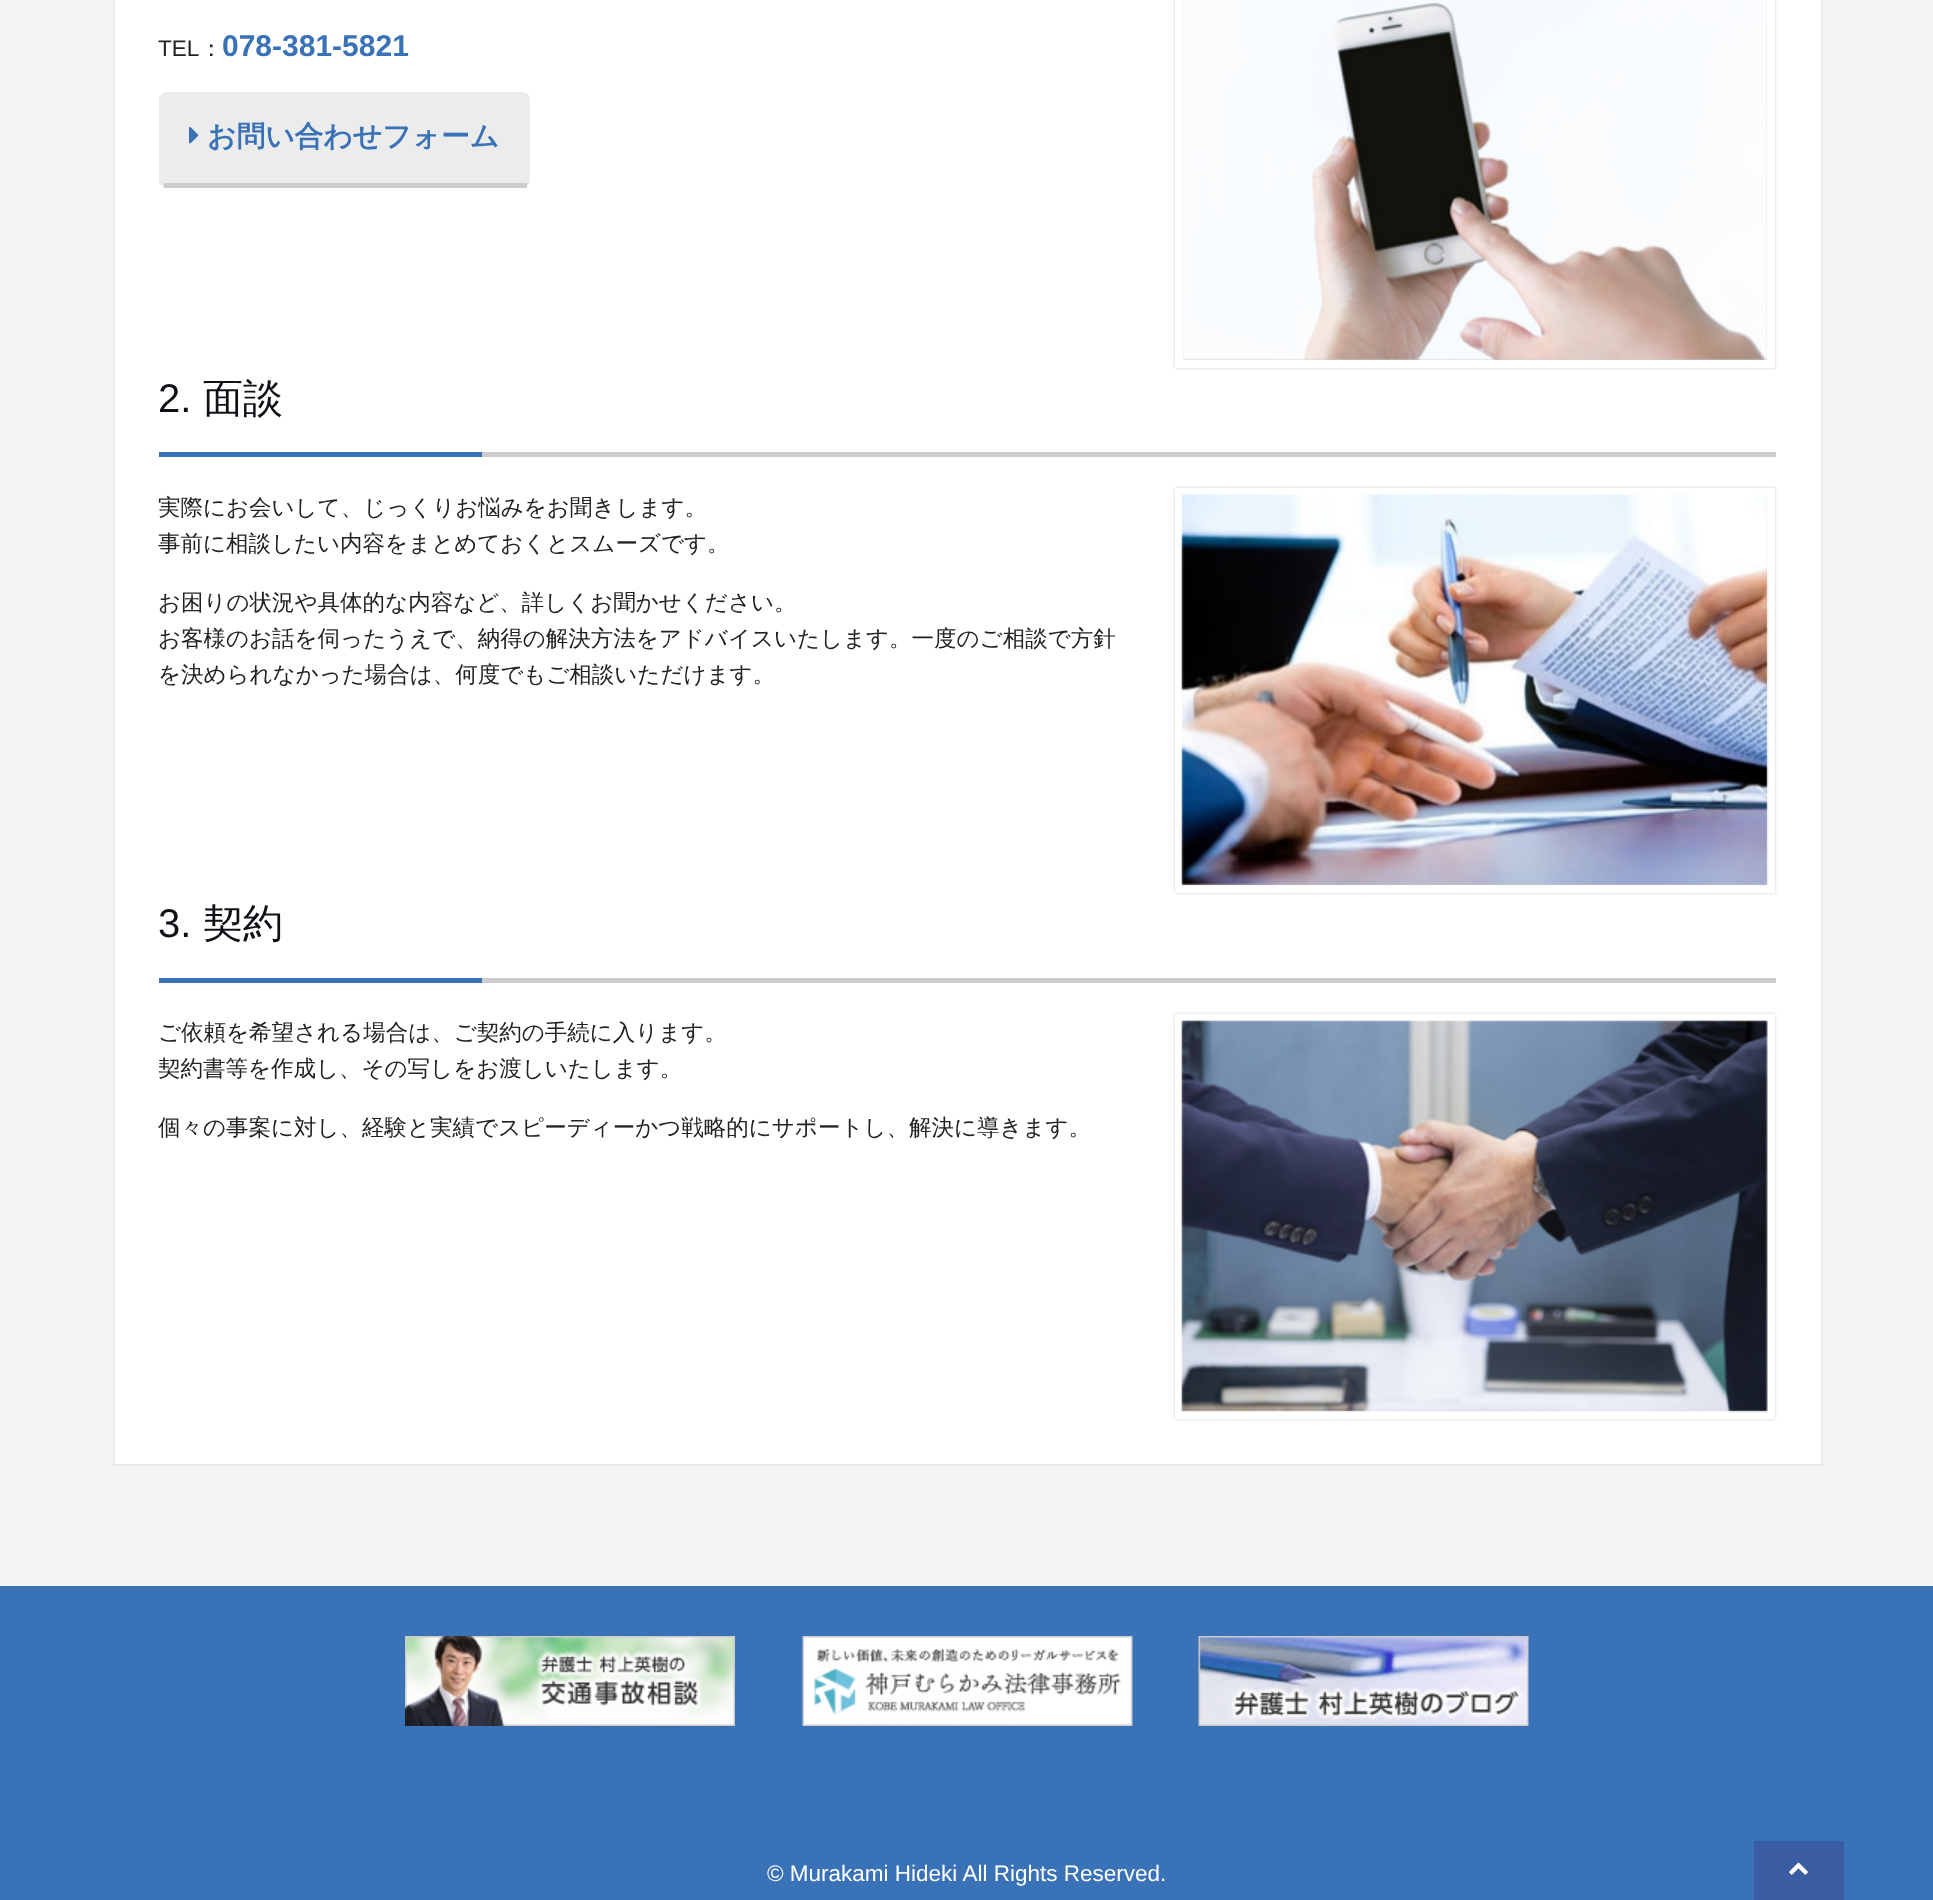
<?xml version="1.0" encoding="UTF-8"?>
<svg xmlns="http://www.w3.org/2000/svg" width="1933" height="1900">
    <defs>
        <filter id="blur1" x="-50%" y="-200%" width="200%" height="500%"><feGaussianBlur stdDeviation="1.5"/></filter>
    </defs>
    <rect width="100%" height="100%" fill="#F5F5F5"/>
    <rect x="114" y="-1" width="1708" height="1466" fill="#FFFFFF" stroke="#E9E9E9" stroke-width="2"/>
    <text x="158" y="56" font-family="Liberation Sans" font-size="22.5" fill="#222222">TEL</text>
    <text x="200" y="56" font-family="WenQuanYi Zen Hei" font-size="22.5" font-weight="500" fill="#222222">：</text>
    <text x="222" y="56" font-family="Liberation Sans" font-size="30" font-weight="700" fill="#3972B7">078-381-5821</text>
    <rect x="1175" y="-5" width="600" height="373" fill="#CCCCCC" filter="url(#blur1)"/>
    <rect x="1179" y="-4" width="592" height="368" fill="none" stroke="#FFFFFF" stroke-width="8"/>
    <image x="1182" y="0" width="585" height="360" href="img_01.png"/>
    <rect x="159" y="92" width="371" height="96" rx="8" fill="#ECECEC"/>
    <rect x="164" y="183" width="363" height="5" fill="#CCCCCC"/>
    <image x="189" y="127" width="10" height="17" href="img_02.png"/>
    <text x="207" y="146" font-family="WenQuanYi Zen Hei" font-size="28.75" font-weight="700" fill="#3972B7">お問い合わせフォーム</text>
    <rect x="482" y="452" width="1294" height="5" fill="#CCCCCC"/>
    <text x="158" y="412" font-family="Liberation Sans" font-size="40" fill="#0F0F16">2.</text>
    <text x="203" y="412" font-family="WenQuanYi Zen Hei" font-size="40" font-weight="500" fill="#0F0F16">面談</text>
    <rect x="159" y="452" width="323" height="5" fill="#3972B7"/>
    <text font-family="WenQuanYi Zen Hei" font-size="22.5" font-weight="500" fill="#222222">
        <tspan x="158" y="515">実際にお会いして、じっくりお悩みをお聞きします。</tspan>
        <tspan x="158" y="551">事前に相談したい内容をまとめておくとスムーズです。</tspan>
    </text>
    <rect x="1175" y="488" width="600" height="405" fill="#CCCCCC" filter="url(#blur1)"/>
    <rect x="1179" y="492" width="592" height="397" fill="none" stroke="#FFFFFF" stroke-width="8"/>
    <image x="1181" y="494" width="588" height="392" href="img_03.png"/>
    <text font-family="WenQuanYi Zen Hei" font-size="22.5" font-weight="500" fill="#222222">
        <tspan x="158" y="610">お困りの状況や具体的な内容など、詳しくお聞かせください。</tspan>
        <tspan x="158" y="646">お客様のお話を伺ったうえで、納得の解決方法をアドバイスいたします。一度のご相談で方針</tspan>
        <tspan x="158" y="682">を決められなかった場合は、何度でもご相談いただけます。</tspan>
    </text>
    <rect x="482" y="978" width="1294" height="5" fill="#CCCCCC"/>
    <text x="158" y="937" font-family="Liberation Sans" font-size="40" fill="#0F0F16">3.</text>
    <text x="203" y="937" font-family="WenQuanYi Zen Hei" font-size="40" font-weight="500" fill="#0F0F16">契約</text>
    <rect x="159" y="978" width="323" height="5" fill="#3972B7"/>
    <text font-family="WenQuanYi Zen Hei" font-size="22.5" font-weight="500" fill="#222222">
        <tspan x="158" y="1040">ご依頼を希望される場合は、ご契約の手続に入ります。</tspan>
        <tspan x="158" y="1076">契約書等を作成し、その写しをお渡しいたします。</tspan>
    </text>
    <rect x="1175" y="1014" width="600" height="405" fill="#CCCCCC" filter="url(#blur1)"/>
    <rect x="1179" y="1018" width="592" height="397" fill="none" stroke="#FFFFFF" stroke-width="8"/>
    <image x="1181" y="1020" width="587" height="393" href="img_04.png"/>
    <text x="158" y="1135" font-family="WenQuanYi Zen Hei" font-size="22.5" font-weight="500" fill="#222222">個々の事案に対し、経験と実績でスピーディーかつ戦略的にサポートし、解決に導きます。</text>
    <rect x="0" y="1586" width="1933" height="314" fill="#3972B7"/>
    <image x="405" y="1636" width="330" height="90" href="img_05.png"/>
    <image x="802" y="1636" width="331" height="90" href="img_06.png"/>
    <image x="1198" y="1636" width="331" height="90" href="img_07.png"/>
    <text x="767" y="1881" font-family="Liberation Sans" font-size="22.5" fill="#FFFFFF">© Murakami Hideki All Rights Reserved.</text>
    <rect x="1754" y="1841" width="90" height="59" fill="#395CA3"/>
    <image x="1789" y="1862" width="19" height="13" href="img_08.png"/>
</svg>
